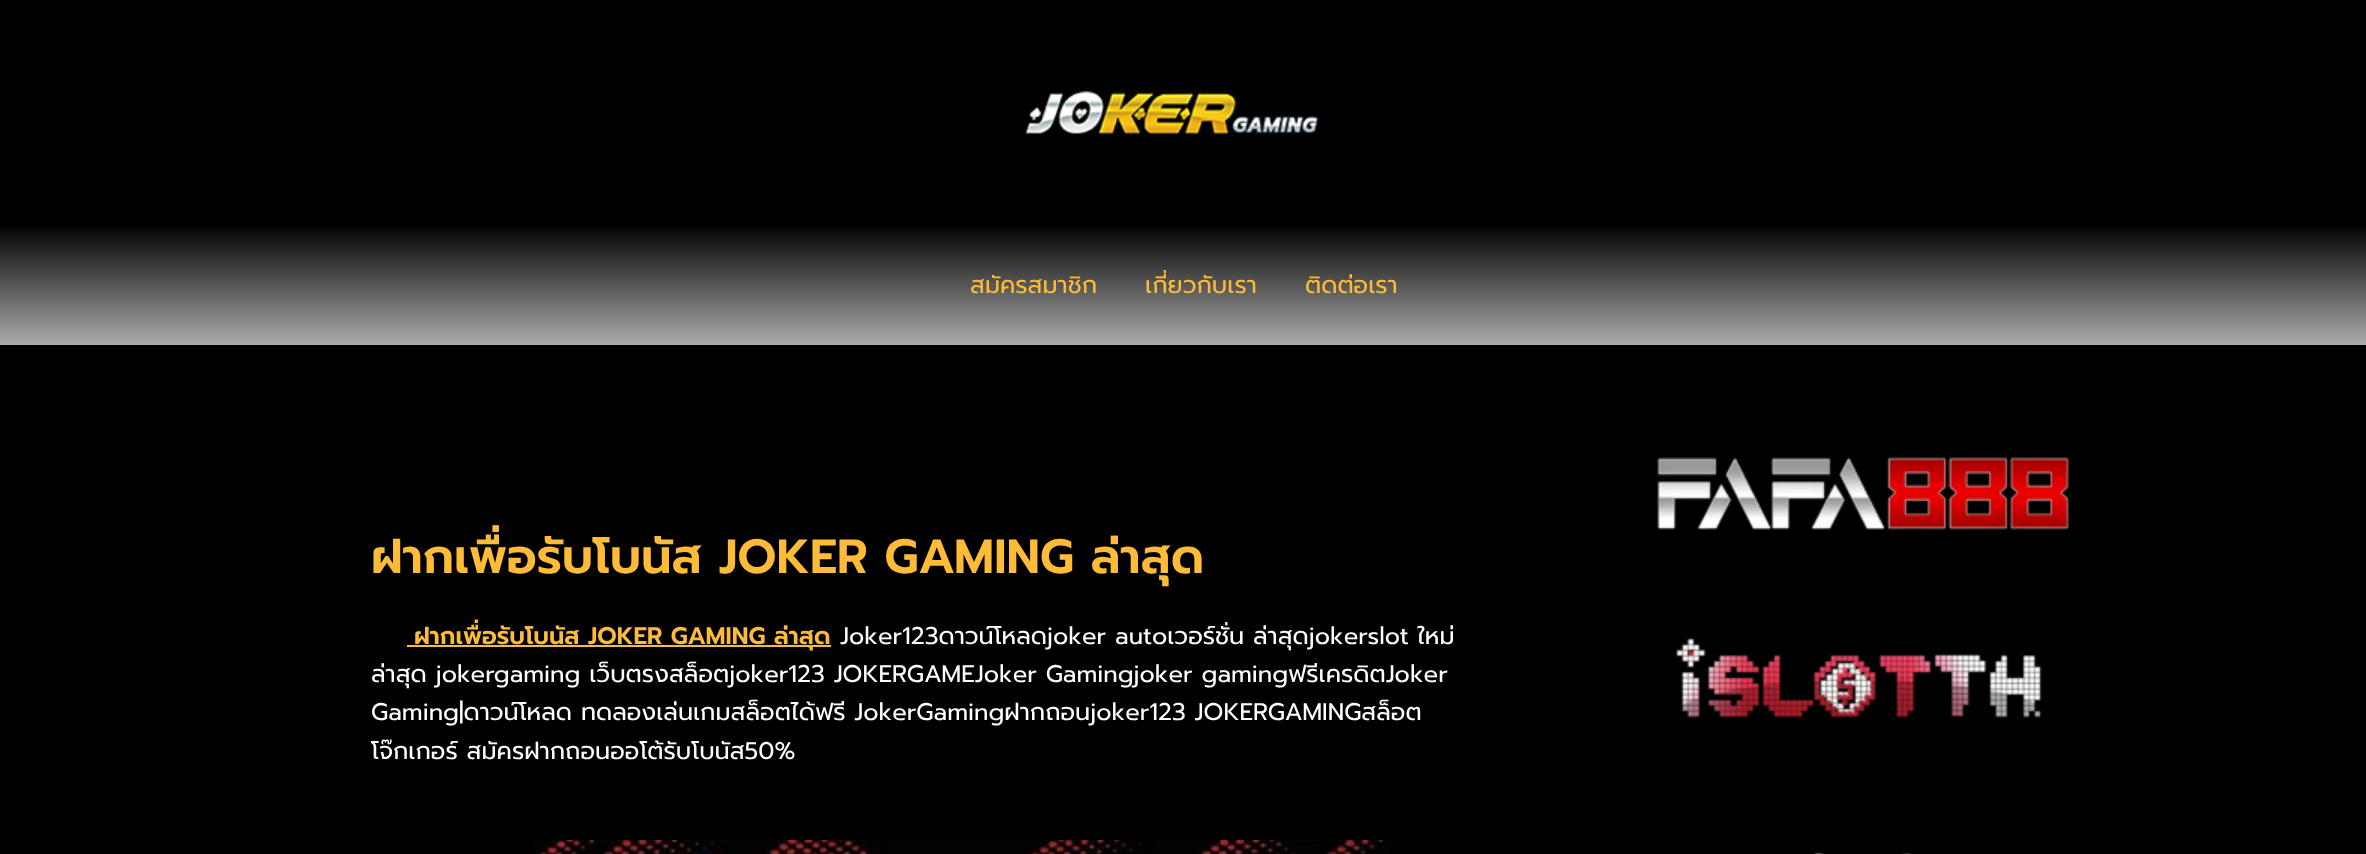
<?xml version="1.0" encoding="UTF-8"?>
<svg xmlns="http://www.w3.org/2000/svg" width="2366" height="854">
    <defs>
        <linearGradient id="g1" gradientUnits="userSpaceOnUse" x1="1184" y1="225" x2="1184" y2="345"><stop offset="0" stop-color="#010101"/><stop offset="1" stop-color="#ABABAB"/></linearGradient>
    </defs>
    <rect width="100%" height="100%" fill="#000000"/>
    <image x="1025" y="90" width="294" height="48" href="img_01.png"/>
    <rect x="0" y="226" width="2366" height="119" fill="url(#g1)"/>
    <text x="970" y="293" font-family="Prompt" font-size="24" fill="#FEBB37">สมัครสมาชิก</text>
    <text x="1145" y="293" font-family="Prompt" font-size="24" fill="#FEBB37">เกี่ยวกับเรา</text>
    <text x="1305" y="293" font-family="Prompt" font-size="24" fill="#FEBB37">ติดต่อเรา</text>
    <text x="371" y="573" font-family="Prompt" font-size="48" font-weight="600" fill="#FEBB37">ฝากเพื่อรับโบนัส JOKER GAMING ล่าสุด</text>
    <rect x="407" y="645" width="424" height="2" fill="#FEBB37"/>
    <text x="414" y="644" font-family="Prompt" font-size="24" font-weight="600" fill="#FEBB37">ฝากเพื่อรับโบนัส JOKER GAMING ล่าสุด</text>
    <text x="840" y="644" font-family="Prompt" font-size="24" fill="#FFFFFF">Joker123ดาวน์โหลดjoker autoเวอร์ชั่น ล่าสุดjokerslot ใหม่</text>
    <text font-family="Prompt" font-size="24" fill="#FFFFFF">
        <tspan x="371" y="682">ล่าสุด jokergaming เว็บตรงสล็อตjoker123 JOKERGAMEJoker Gamingjoker gamingฟรีเครดิตJoker</tspan>
        <tspan x="371" y="720">Gaming|ดาวน์โหลด ทดลองเล่นเกมสล็อตได้ฟรี JokerGamingฝากถอนjoker123 JOKERGAMINGสล็อต</tspan>
        <tspan x="371" y="759">โจ๊กเกอร์ สมัครฝากถอนออโต้รับโบนัส50%</tspan>
    </text>
    <image x="532" y="840" width="859" height="14" href="img_02.png"/>
    <image x="1657" y="457" width="412" height="73" href="img_03.png"/>
    <image x="1675" y="637" width="367" height="81" href="img_04.png"/>
    <image x="1813" y="852" width="99" height="2" href="img_05.png"/>
</svg>
